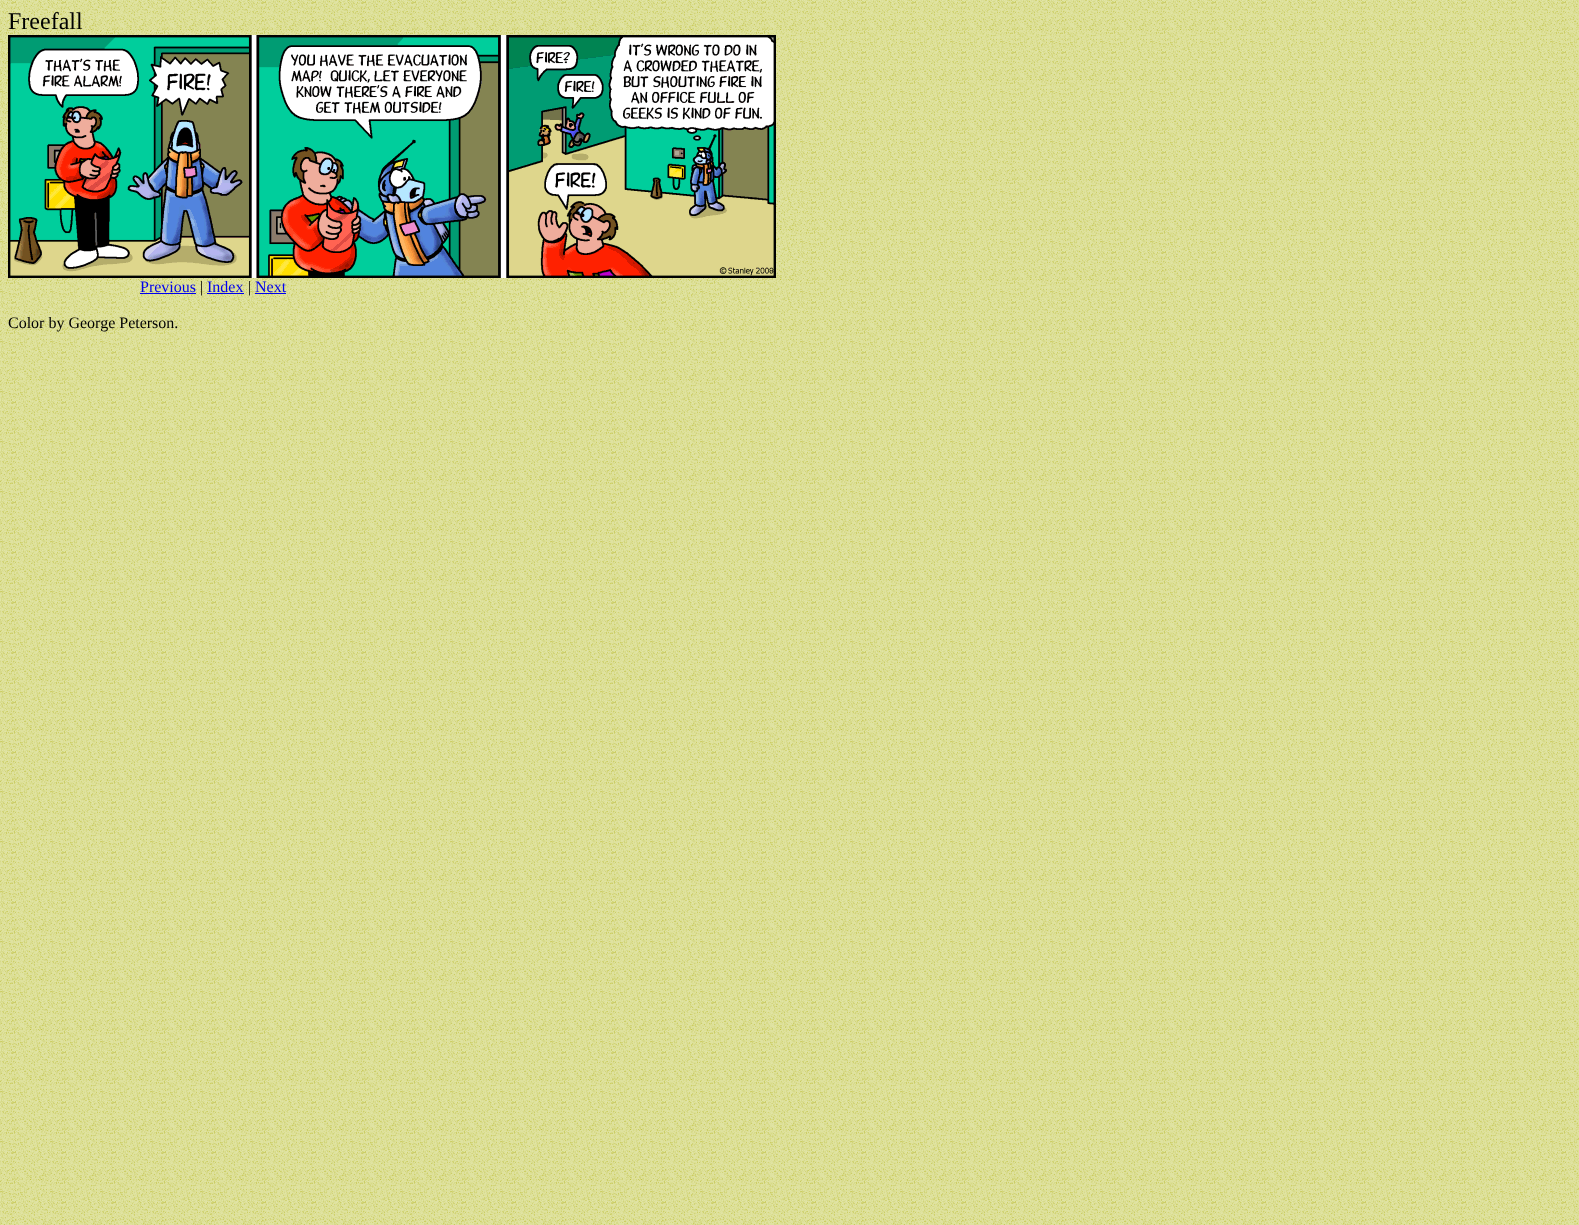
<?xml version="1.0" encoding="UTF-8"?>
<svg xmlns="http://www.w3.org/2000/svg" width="1579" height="1225">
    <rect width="100%" height="100%" fill="#FFFFFF"/>
    <image x="0" y="0" width="1579" height="1225" href="img_01.png"/>
    <text x="8" y="29" font-family="Liberation Serif" font-size="24" fill="#000000">Freefall</text>
    <image x="8" y="35" width="768" height="243" href="img_02.png"/>
    <text x="140" y="292" font-family="Liberation Serif" font-size="16" fill="#0000EE">Previous</text>
    <rect x="140" y="293" width="56" height="1" fill="#0000EE"/>
    <text x="200" y="292" font-family="Liberation Serif" font-size="16" fill="#000000">|</text>
    <text x="207" y="292" font-family="Liberation Serif" font-size="16" fill="#0000EE">Index</text>
    <rect x="207" y="293" width="37" height="1" fill="#0000EE"/>
    <text x="248" y="292" font-family="Liberation Serif" font-size="16" fill="#000000">|</text>
    <text x="255" y="292" font-family="Liberation Serif" font-size="16" fill="#0000EE">Next</text>
    <rect x="255" y="293" width="31" height="1" fill="#0000EE"/>
    <text x="8" y="328" font-family="Liberation Serif" font-size="16" fill="#000000">Color by George Peterson.</text>
</svg>
